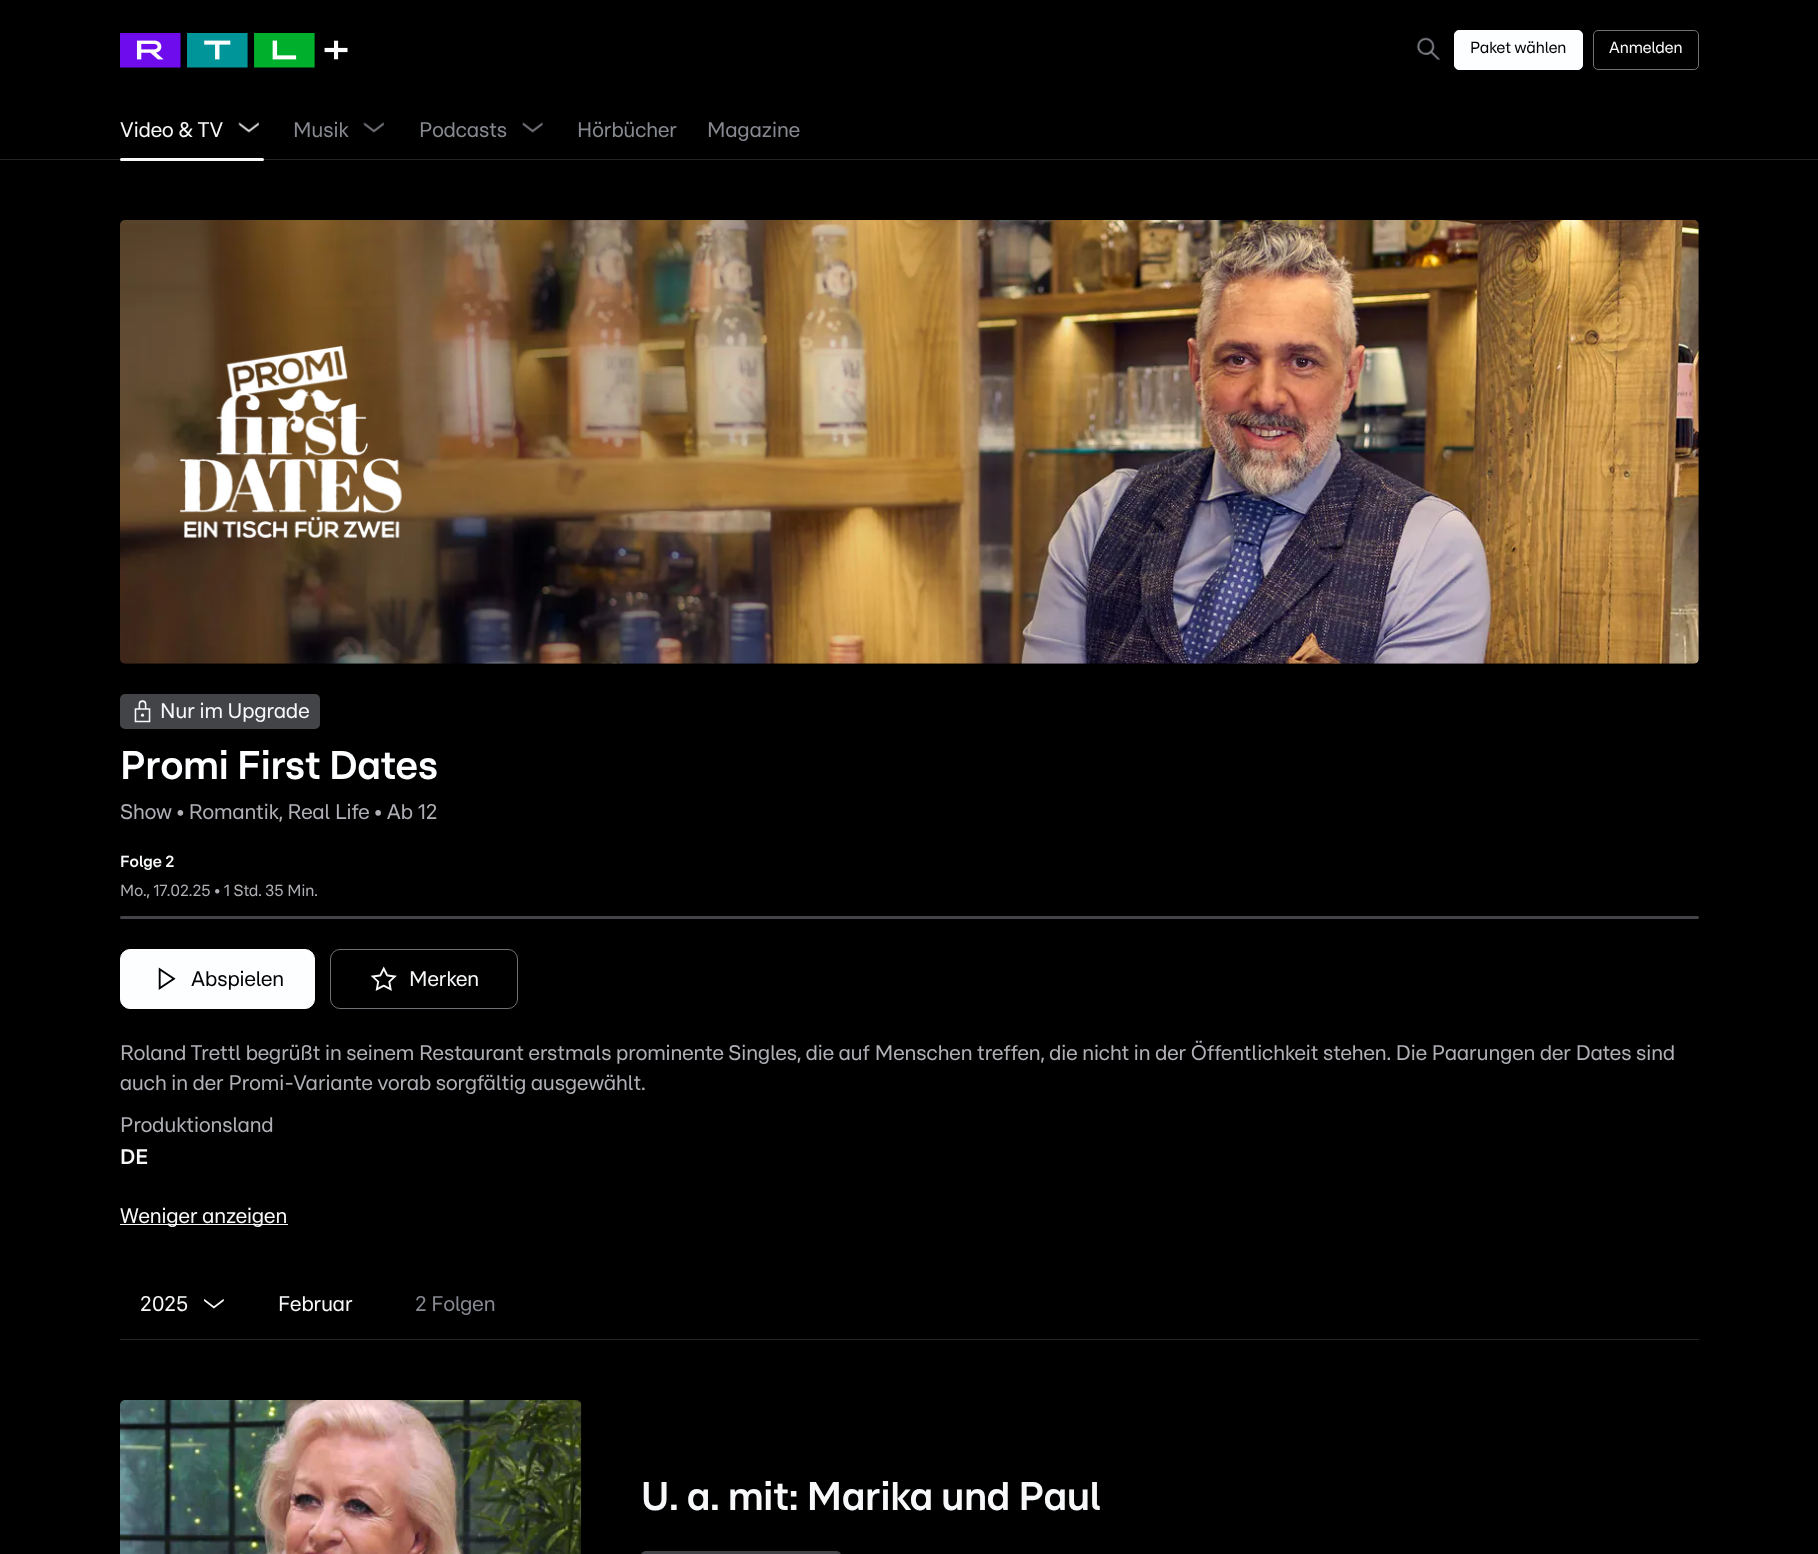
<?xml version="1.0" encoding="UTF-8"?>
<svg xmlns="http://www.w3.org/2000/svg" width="1818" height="1554">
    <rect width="100%" height="100%" fill="#000000"/>
    <rect x="0" y="159" width="1818" height="1" fill="#222325"/>
    <image x="120" y="33" width="228" height="35" href="img_01.png"/>
    <image x="1416" y="37" width="25" height="23" href="img_02.png"/>
    <rect x="1454.5" y="30.5" width="128" height="39" rx="4.5" fill="#FDFEFF" stroke="#FDFEFF"/>
    <text x="1470" y="53" font-family="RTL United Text" font-size="16.25" fill="#020203">Paket wählen</text>
    <rect x="1593.5" y="30.5" width="105" height="39" rx="4.5" fill="none" stroke="#6E7175"/>
    <text x="1609" y="53" font-family="RTL United Text" font-size="16.25" fill="#F7F8F9">Anmelden</text>
    <text x="120" y="137" font-family="RTL United Text" font-size="21.25" fill="#F7F8F9">Video &amp; TV</text>
    <rect x="120" y="158" width="144" height="3" rx="1.5" fill="#F7F8F9"/>
    <image x="238" y="122" width="21" height="11" href="img_03.png"/>
    <text x="293" y="137" font-family="RTL United Text" font-size="21.25" fill="#878991">Musik</text>
    <image x="363" y="122" width="21" height="11" href="img_04.png"/>
    <text x="419" y="137" font-family="RTL United Text" font-size="21.25" fill="#878991">Podcasts</text>
    <image x="522" y="122" width="21" height="11" href="img_05.png"/>
    <text x="577" y="137" font-family="RTL United Text" font-size="21.25" fill="#878991">Hörbücher</text>
    <text x="707" y="137" font-family="RTL United Text" font-size="21.25" fill="#878991">Magazine</text>
    <image x="120" y="220" width="1579" height="444" href="img_06.png"/>
    <image x="180" y="345" width="222" height="194" href="img_07.png"/>
    <rect x="120" y="694" width="200" height="35" rx="5" fill="#424447"/>
    <image x="134" y="700" width="17" height="23" href="img_08.png"/>
    <text x="160" y="718" font-family="RTL United Text" font-size="21.25" fill="#F7F8F9">Nur im Upgrade</text>
    <text x="120" y="779" font-family="RTL United Text" font-size="40" font-weight="700" fill="#FDFEFF">Promi First Dates</text>
    <text x="120" y="819" font-family="RTL United Text" font-size="21.25" fill="#AFB0B6">Show • Romantik, Real Life • Ab 12</text>
    <text x="120" y="867" font-family="RTL United Text" font-size="16.25" font-weight="700" fill="#F7F8F9">Folge 2</text>
    <text x="120" y="896" font-family="RTL United Text" font-size="16.25" fill="#AFB0B6">Mo., 17.02.25 • 1 Std. 35 Min.</text>
    <rect x="120" y="916" width="1579" height="3" rx="1.5" fill="#424447"/>
    <rect x="120.5" y="949.5" width="194" height="59" rx="9.5" fill="#FDFEFF" stroke="#FDFEFF"/>
    <image x="158" y="967" width="18" height="23" href="img_09.png"/>
    <text x="191" y="986" font-family="RTL United Text" font-size="21.25" fill="#020203">Abspielen</text>
    <rect x="330.5" y="949.5" width="187" height="59" rx="9.5" fill="none" stroke="#6E7175"/>
    <image x="370" y="966" width="27" height="25" href="img_10.png"/>
    <text x="409" y="986" font-family="RTL United Text" font-size="21.25" fill="#F7F8F9">Merken</text>
    <text font-family="RTL United Text" font-size="21.25" fill="#AFB0B6">
        <tspan x="120" y="1060">Roland Trettl begrüßt in seinem Restaurant erstmals prominente Singles, die auf Menschen treffen, die nicht in der Öffentlichkeit stehen. Die Paarungen der Dates sind</tspan>
        <tspan x="120" y="1090">auch in der Promi-Variante vorab sorgfältig ausgewählt.</tspan>
        <tspan x="120" y="1132">Produktionsland</tspan>
    </text>
    <text x="120" y="1164" font-family="RTL United Text" font-size="21.25" font-weight="700" fill="#F7F8F9">DE</text>
    <rect x="120" y="1224" width="168" height="1" fill="#F7F8F9"/>
    <text x="120" y="1223" font-family="RTL United Text" font-size="21.25" fill="#F7F8F9">Weniger anzeigen</text>
    <rect x="120" y="1339" width="1579" height="1" fill="#222325"/>
    <text x="140" y="1311" font-family="RTL United Text" font-size="21.25" fill="#F7F8F9">2025</text>
    <image x="204" y="1298" width="20" height="11" href="img_11.png"/>
    <text x="278" y="1311" font-family="RTL United Text" font-size="21.25" fill="#F7F8F9">Februar</text>
    <text x="415" y="1311" font-family="RTL United Text" font-size="21.25" fill="#878991">2 Folgen</text>
    <image x="120" y="1400" width="462" height="154" href="img_12.png"/>
    <text x="641" y="1510" font-family="RTL United Text" font-size="40" font-weight="700" fill="#F7F8F9">U. a. mit: Marika und Paul</text>
    <rect x="641" y="1551" width="200" height="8" rx="5" fill="#424447"/>
</svg>
